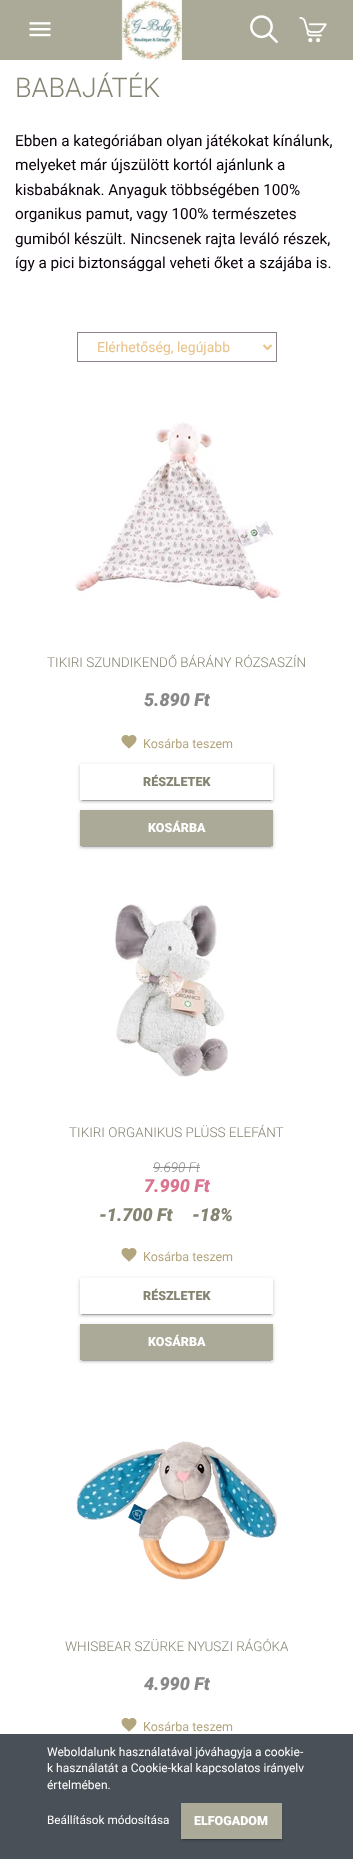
<?xml version="1.0" encoding="UTF-8"?>
<svg xmlns="http://www.w3.org/2000/svg" width="353" height="1859">
    <defs>
        <clipPath id="clip1"><rect x="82" y="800" width="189" height="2"/></clipPath>
        <filter id="blur1" x="-50%" y="-200%" width="200%" height="500%"><feGaussianBlur stdDeviation="0.5"/></filter>
        <clipPath id="clip2"><path d="M 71 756 H 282 V 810 H 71 Z M 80 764 H 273 V 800 H 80 Z" clip-rule="evenodd"/></clipPath>
        <filter id="blur2" x="-50%" y="-200%" width="200%" height="500%"><feGaussianBlur stdDeviation="2.5"/></filter>
        <clipPath id="clip3"><path d="M 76 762 H 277 V 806 H 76 Z M 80 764 H 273 V 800 H 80 Z" clip-rule="evenodd"/></clipPath>
        <filter id="blur3" x="-50%" y="-200%" width="200%" height="500%"><feGaussianBlur stdDeviation="1"/></filter>
        <clipPath id="clip4"><rect x="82" y="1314" width="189" height="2"/></clipPath>
        <clipPath id="clip5"><path d="M 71 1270 H 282 V 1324 H 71 Z M 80 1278 H 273 V 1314 H 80 Z" clip-rule="evenodd"/></clipPath>
        <clipPath id="clip6"><path d="M 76 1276 H 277 V 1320 H 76 Z M 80 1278 H 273 V 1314 H 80 Z" clip-rule="evenodd"/></clipPath>
    </defs>
    <rect width="100%" height="100%" fill="#FFFFFF"/>
    <rect x="0" y="0" width="353" height="60" fill="#ABAA98"/>
    <image x="29" y="22" width="22" height="15" href="img_01.png"/>
    <image x="121" y="0" width="61" height="60" href="img_02.png"/>
    <image x="250" y="15" width="28" height="28" href="img_03.png"/>
    <image x="299" y="17" width="28" height="26" href="img_04.png"/>
    <text x="15" y="97" font-family="Roboto" font-size="27" font-weight="300" fill="#858371">BABAJÁTÉK</text>
    <text font-family="Roboto" font-size="15.3" fill="#0A000A">
        <tspan x="15" y="146">Ebben a kategóriában olyan játékokat kínálunk,</tspan>
        <tspan x="15" y="170">melyeket már újszülött kortól ajánlunk a</tspan>
        <tspan x="15" y="195">kisbabáknak. Anyaguk többségében 100%</tspan>
        <tspan x="15" y="219">organikus pamut, vagy 100% természetes</tspan>
        <tspan x="15" y="244">gumiból készült. Nincsenek rajta leváló részek,</tspan>
        <tspan x="15" y="268">így a pici biztonsággal veheti őket a szájába is.</tspan>
    </text>
    <rect x="77.5" y="332.5" width="199" height="29" fill="none" stroke="#8F828F"/>
    <path d="M 263.5 345 L 267.5 349 L 271.5 345" fill="none" stroke="#E8C288" stroke-width="2"/>
    <text x="97" y="352" font-family="Roboto" font-size="14" fill="#E8C288">Elérhetőség, legújabb</text>
    <image x="75" y="422" width="206" height="182" href="img_05.png"/>
    <text x="47" y="667" font-family="Roboto" font-size="13.5" font-weight="300" fill="#858371">TIKIRI SZUNDIKENDŐ BÁRÁNY RÓZSASZÍN</text>
    <text x="144" y="706" font-family="Roboto" font-size="18" font-weight="900" font-style="italic" fill="#888888">5.890 Ft</text>
    <image x="121" y="735" width="16" height="14" href="img_06.png"/>
    <text x="143" y="748" font-family="Roboto" font-size="12.5" fill="#B3A57D">Kosárba teszem</text>
    <g clip-path="url(#clip1)">
        <rect x="82" y="769" width="189" height="32" fill="#000000" fill-opacity="0.2" filter="url(#blur1)"/>
    </g>
    <g clip-path="url(#clip2)">
        <rect x="80" y="765" width="193" height="36" fill="#000000" fill-opacity="0.12" filter="url(#blur2)"/>
    </g>
    <g clip-path="url(#clip3)">
        <rect x="80" y="766" width="193" height="36" fill="#000000" fill-opacity="0.14" filter="url(#blur3)"/>
    </g>
    <text x="143" y="786" font-family="Roboto" font-size="12.5" font-weight="900" fill="#858371">RÉSZLETEK</text>
    <rect x="82" y="815" width="189" height="32" fill="#000000" fill-opacity="0.2" filter="url(#blur1)"/>
    <rect x="80" y="811" width="193" height="36" fill="#000000" fill-opacity="0.12" filter="url(#blur2)"/>
    <rect x="80" y="812" width="193" height="36" fill="#000000" fill-opacity="0.14" filter="url(#blur3)"/>
    <rect x="80" y="810" width="193" height="36" fill="#ABAA98"/>
    <text x="148" y="832" font-family="Roboto" font-size="12.5" font-weight="900" fill="#FFFFFF">KOSÁRBA</text>
    <image x="114" y="903" width="114" height="174" href="img_07.png"/>
    <text x="69" y="1137" font-family="Roboto" font-size="13.5" font-weight="300" fill="#858371">TIKIRI ORGANIKUS PLÜSS ELEFÁNT</text>
    <text x="153" y="1172" font-family="Roboto" font-size="13.5" font-weight="300" font-style="italic" fill="#888888">9.690 Ft</text>
    <rect x="153" y="1167" width="47" height="1" fill="#888888"/>
    <text x="144" y="1192" font-family="Roboto" font-size="18" font-weight="900" font-style="italic" fill="#D97590">7.990 Ft</text>
    <text x="99" y="1221" font-family="Roboto" font-size="18" font-weight="900" font-style="italic" fill="#858371">-1.700 Ft</text>
    <text x="192" y="1221" font-family="Roboto" font-size="18" font-weight="900" font-style="italic" fill="#858371">-18%</text>
    <image x="121" y="1248" width="16" height="14" href="img_06.png"/>
    <text x="143" y="1261" font-family="Roboto" font-size="12.5" fill="#B3A57D">Kosárba teszem</text>
    <g clip-path="url(#clip4)">
        <rect x="82" y="1283" width="189" height="32" fill="#000000" fill-opacity="0.2" filter="url(#blur1)"/>
    </g>
    <g clip-path="url(#clip5)">
        <rect x="80" y="1279" width="193" height="36" fill="#000000" fill-opacity="0.12" filter="url(#blur2)"/>
    </g>
    <g clip-path="url(#clip6)">
        <rect x="80" y="1280" width="193" height="36" fill="#000000" fill-opacity="0.14" filter="url(#blur3)"/>
    </g>
    <text x="143" y="1300" font-family="Roboto" font-size="12.5" font-weight="900" fill="#858371">RÉSZLETEK</text>
    <rect x="82" y="1329" width="189" height="32" fill="#000000" fill-opacity="0.2" filter="url(#blur1)"/>
    <rect x="80" y="1325" width="193" height="36" fill="#000000" fill-opacity="0.12" filter="url(#blur2)"/>
    <rect x="80" y="1326" width="193" height="36" fill="#000000" fill-opacity="0.14" filter="url(#blur3)"/>
    <rect x="80" y="1324" width="193" height="36" fill="#ABAA98"/>
    <text x="148" y="1346" font-family="Roboto" font-size="12.5" font-weight="900" fill="#FFFFFF">KOSÁRBA</text>
    <image x="76" y="1441" width="202" height="139" href="img_08.png"/>
    <text x="65" y="1651" font-family="Roboto" font-size="13.5" font-weight="300" fill="#858371">WHISBEAR SZÜRKE NYUSZI RÁGÓKA</text>
    <text x="144" y="1690" font-family="Roboto" font-size="18" font-weight="900" font-style="italic" fill="#888888">4.990 Ft</text>
    <image x="121" y="1718" width="16" height="14" href="img_06.png"/>
    <text x="143" y="1731" font-family="Roboto" font-size="12.5" fill="#B3A57D">Kosárba teszem</text>
    <rect x="0" y="1734" width="353" height="125" fill="#495057"/>
    <text font-family="Roboto" font-size="12" fill="#FFFFFF">
        <tspan x="47" y="1756">Weboldalunk használatával jóváhagyja a cookie-</tspan>
        <tspan x="47" y="1772">k használatát a Cookie-kkal kapcsolatos irányelv</tspan>
        <tspan x="47" y="1789">értelmében.</tspan>
    </text>
    <text x="47" y="1824" font-family="Roboto" font-size="11.75" fill="#FFFFFF">Beállítások módosítása</text>
    <rect x="183" y="1808" width="97" height="32" fill="#000000" fill-opacity="0.2" filter="url(#blur1)"/>
    <rect x="181" y="1805" width="101" height="36" fill="#000000" fill-opacity="0.14" filter="url(#blur3)"/>
    <rect x="181" y="1803" width="101" height="36" fill="#ABAA98"/>
    <text x="194" y="1825" font-family="Roboto" font-size="12.5" font-weight="900" fill="#FFFFFF">ELFOGADOM</text>
</svg>
